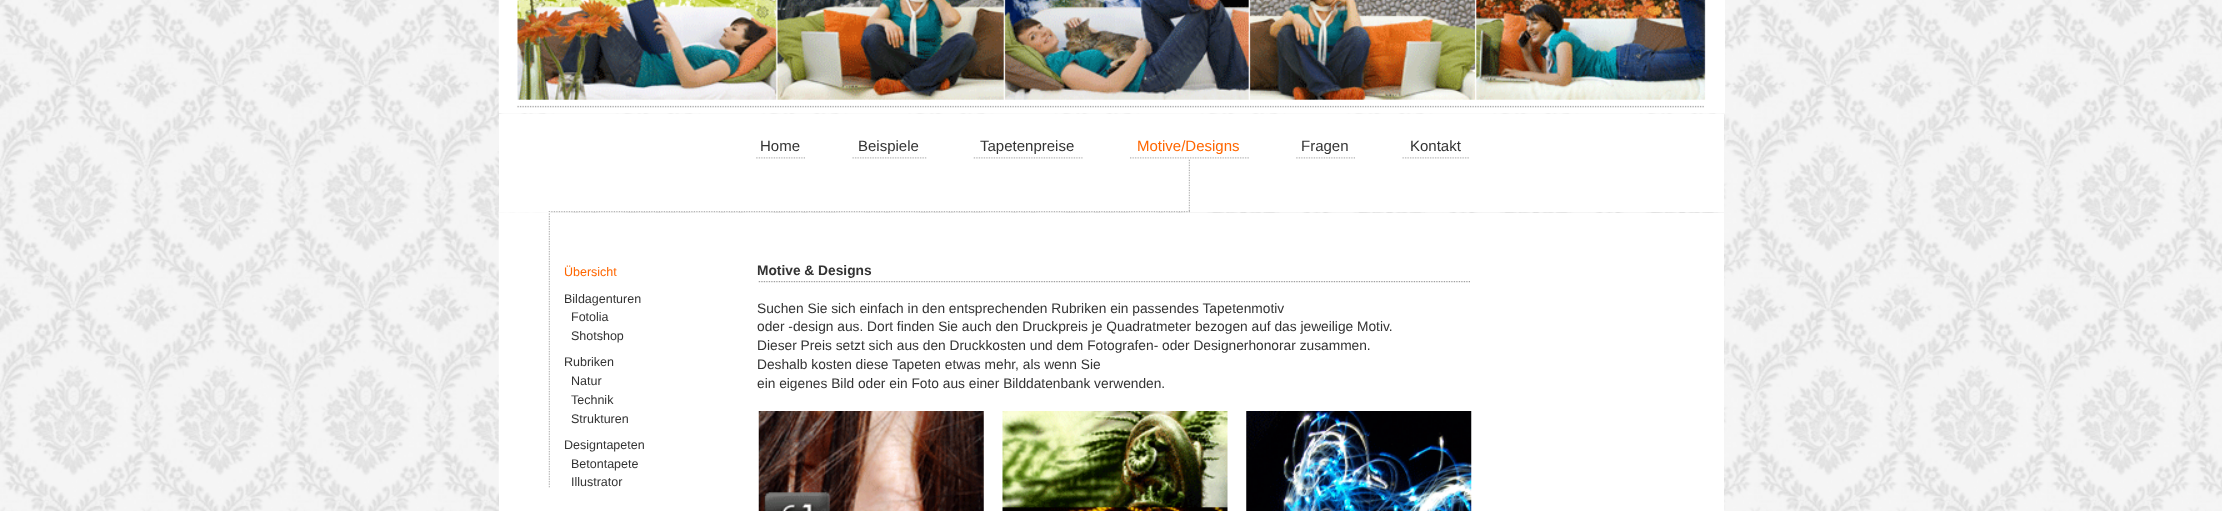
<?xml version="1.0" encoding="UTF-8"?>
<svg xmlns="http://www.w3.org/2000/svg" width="2222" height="511">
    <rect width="100%" height="100%" fill="#FFFFFF"/>
    <image x="0" y="0" width="2222" height="511" href="img_01.png"/>
    <image x="498" y="0" width="1227" height="114" href="img_02.png"/>
    <rect x="499" y="114" width="257" height="97" fill="#FFFFFF"/>
    <rect x="756" y="114" width="713" height="45" fill="#FFFFFF"/>
    <text x="760" y="151" font-family="Liberation Sans" font-size="15" fill="#333333">Home</text>
    <text x="858" y="151" font-family="Liberation Sans" font-size="15" fill="#333333">Beispiele</text>
    <text x="980" y="151" font-family="Liberation Sans" font-size="15" fill="#333333">Tapetenpreise</text>
    <text x="1137" y="151" font-family="Liberation Sans" font-size="15" fill="#FF6600">Motive/Designs</text>
    <text x="1301" y="151" font-family="Liberation Sans" font-size="15" fill="#333333">Fragen</text>
    <text x="1410" y="151" font-family="Liberation Sans" font-size="15" fill="#333333">Kontakt</text>
    <rect x="1469" y="114" width="255" height="97" fill="#FFFFFF"/>
    <image x="756" y="157" width="49" height="2" href="img_03.png"/>
    <image x="852" y="157" width="75" height="2" href="img_04.png"/>
    <image x="973" y="157" width="110" height="2" href="img_05.png"/>
    <image x="1130" y="157" width="119" height="2" href="img_06.png"/>
    <image x="1296" y="157" width="59" height="2" href="img_07.png"/>
    <image x="1402" y="157" width="67" height="2" href="img_08.png"/>
    <rect x="756" y="159" width="713" height="52" fill="#FFFFFF"/>
    <image x="1188" y="159" width="2" height="52" href="img_09.png"/>
    <rect x="1190" y="211" width="534" height="1" fill="#FFFFFF"/>
    <image x="498" y="211" width="692" height="2" href="img_10.png"/>
    <rect x="499" y="213" width="1225" height="298" fill="#FFFFFF"/>
    <image x="498" y="212" width="52" height="276" href="img_11.png"/>
    <text x="564" y="276" font-family="Liberation Sans" font-size="12.5" fill="#FF6600">Übersicht</text>
    <text x="564" y="303" font-family="Liberation Sans" font-size="12.5" fill="#333333">Bildagenturen</text>
    <text font-family="Liberation Sans" font-size="12.5" fill="#333333">
        <tspan x="571" y="321">Fotolia</tspan>
        <tspan x="571" y="340">Shotshop</tspan>
    </text>
    <text x="564" y="366" font-family="Liberation Sans" font-size="12.5" fill="#333333">Rubriken</text>
    <text font-family="Liberation Sans" font-size="12.5" fill="#333333">
        <tspan x="571" y="385">Natur</tspan>
        <tspan x="571" y="404">Technik</tspan>
        <tspan x="571" y="423">Strukturen</tspan>
    </text>
    <text x="564" y="449" font-family="Liberation Sans" font-size="12.5" fill="#333333">Designtapeten</text>
    <text font-family="Liberation Sans" font-size="12.5" fill="#333333">
        <tspan x="571" y="468">Betontapete</tspan>
        <tspan x="571" y="486">Illustrator</tspan>
    </text>
    <text x="757" y="275" font-family="Liberation Sans" font-size="13.75" font-weight="700" fill="#333333">Motive &amp; Designs</text>
    <image x="758" y="281" width="712" height="2" href="img_12.png"/>
    <text font-family="Liberation Sans" font-size="13.75" fill="#333333">
        <tspan x="757" y="313">Suchen Sie sich einfach in den entsprechenden Rubriken ein passendes Tapetenmotiv</tspan>
        <tspan x="757" y="331">oder -design aus. Dort finden Sie auch den Druckpreis je Quadratmeter bezogen auf das jeweilige Motiv.</tspan>
        <tspan x="757" y="350">Dieser Preis setzt sich aus den Druckkosten und dem Fotografen- oder Designerhonorar zusammen.</tspan>
        <tspan x="757" y="369">Deshalb kosten diese Tapeten etwas mehr, als wenn Sie</tspan>
        <tspan x="757" y="388">ein eigenes Bild oder ein Foto aus einer Bilddatenbank verwenden.</tspan>
    </text>
    <image x="758" y="411" width="226" height="100" href="img_13.png"/>
    <image x="1002" y="411" width="226" height="100" href="img_14.png"/>
    <image x="1246" y="411" width="226" height="100" href="img_15.png"/>
</svg>
